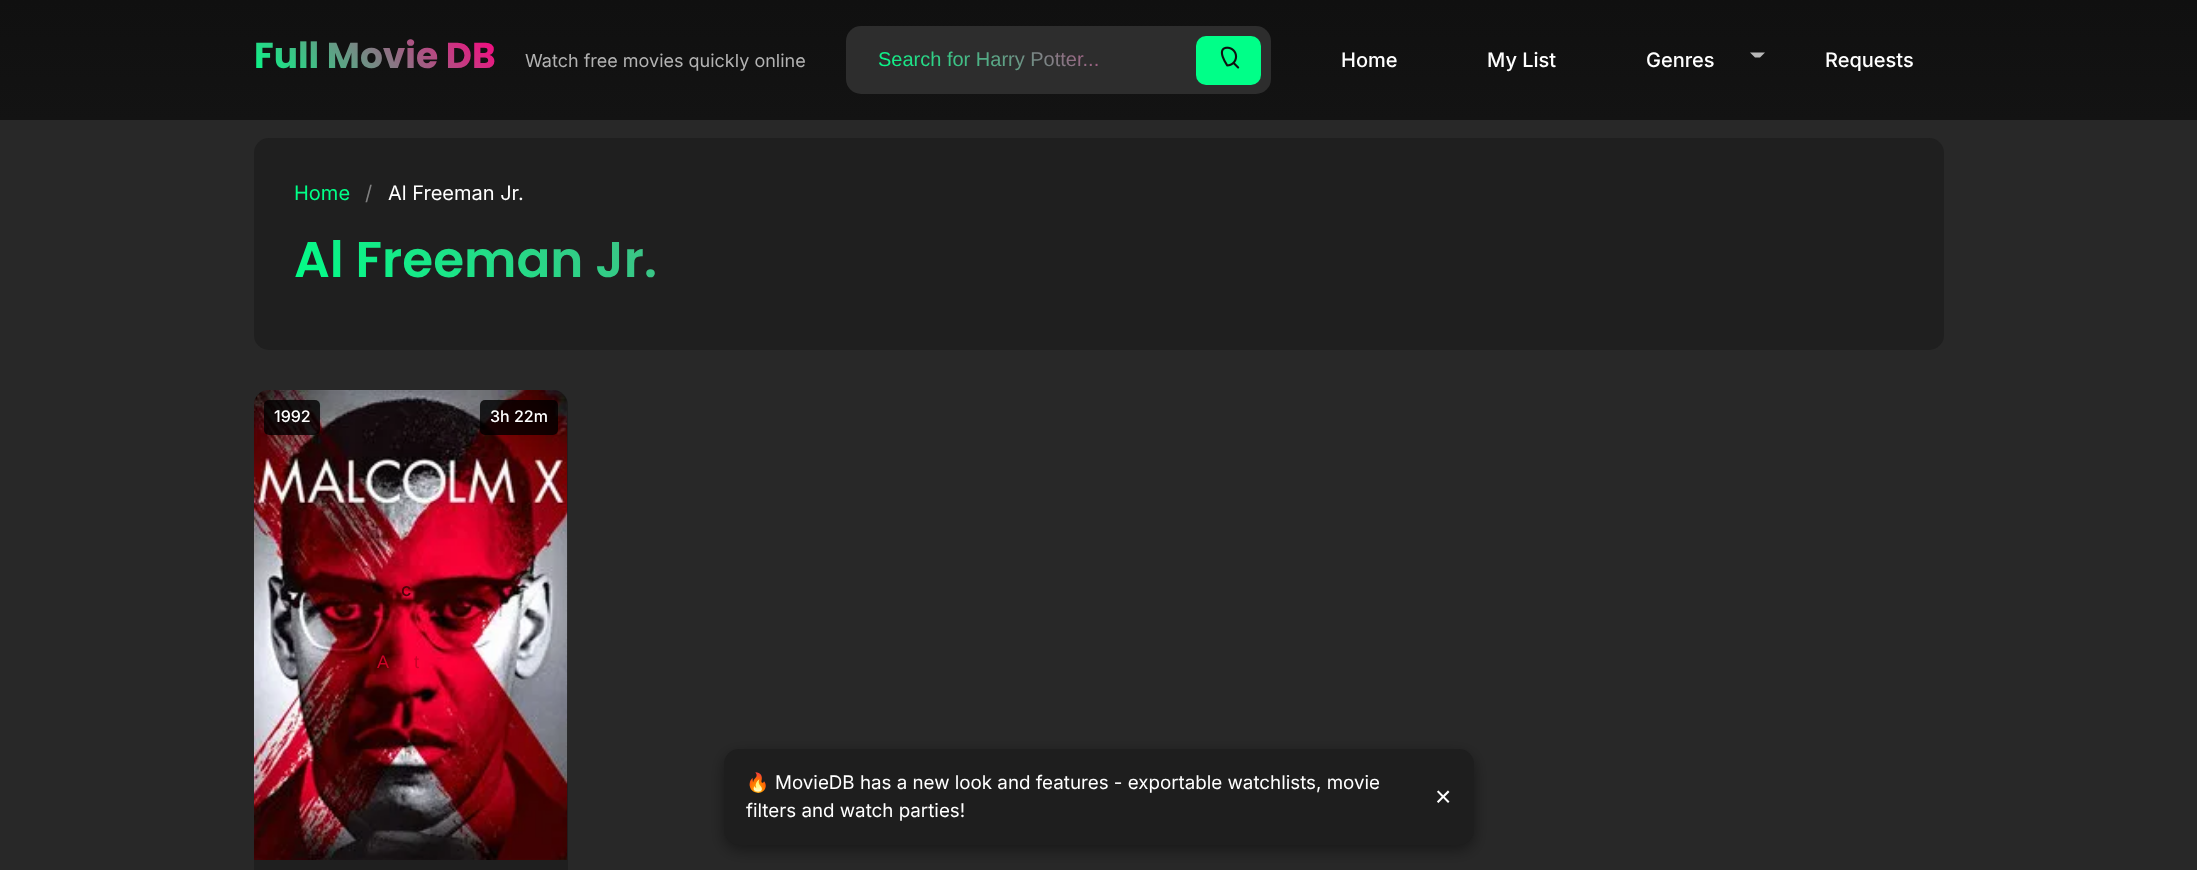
<?xml version="1.0" encoding="UTF-8"?>
<svg xmlns="http://www.w3.org/2000/svg" width="2197" height="870">
    <defs>
        <linearGradient id="g1" gradientUnits="userSpaceOnUse" x1="302" y1="128" x2="447" y2="-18"><stop offset="0" stop-color="#00FF88"/><stop offset="1" stop-color="#FF0080"/></linearGradient>
        <linearGradient id="g2" gradientUnits="userSpaceOnUse" x1="958" y1="151" x2="1140" y2="-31"><stop offset="0" stop-color="#00FF88"/><stop offset="1" stop-color="#FF0080"/></linearGradient>
        <linearGradient id="g3" gradientUnits="userSpaceOnUse" x1="681" y1="677" x2="1516" y2="-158"><stop offset="0" stop-color="#00FF88"/><stop offset="1" stop-color="#FF0080"/></linearGradient>
        <linearGradient id="g4" gradientUnits="userSpaceOnUse" x1="1099" y1="0" x2="1099" y2="120"><stop offset="0" stop-color="#101010"/><stop offset="1" stop-color="#131313"/></linearGradient>
        <filter id="blur1" x="-50%" y="-200%" width="200%" height="500%"><feGaussianBlur stdDeviation="7.5"/></filter>
    </defs>
    <rect width="100%" height="100%" fill="#282828"/>
    <rect x="0" y="0" width="2197" height="120" fill="url(#g4)"/>
    <text x="254" y="68" font-family="Poppins" font-size="36" font-weight="700" fill="url(#g1)">Full Movie DB</text>
    <text x="525" y="67" font-family="Inter" font-size="18" fill="#B3B3B3">Watch free movies quickly online</text>
    <rect x="846" y="26" width="425" height="68" rx="15" fill="#2D2D2D"/>
    <text x="878" y="66" font-family="Liberation Sans" font-size="20" fill="url(#g2)">Search for Harry Potter...</text>
    <rect x="1196" y="36" width="65" height="49" rx="10" fill="#00FF88"/>
    <image x="1220" y="46" width="20" height="23" href="img_01.png"/>
    <text x="1341" y="67" font-family="Inter" font-size="20" font-weight="500" fill="#FFFFFF">Home</text>
    <text x="1487" y="67" font-family="Inter" font-size="20" font-weight="500" fill="#FFFFFF">My List</text>
    <text x="1646" y="67" font-family="Inter" font-size="20" font-weight="500" fill="#FFFFFF">Genres</text>
    <path d="M 1750 52.5 H 1765 L 1760 57.5 H 1755 Z" fill="#B8B8B8"/>
    <text x="1825" y="67" font-family="Inter" font-size="20" font-weight="500" fill="#FFFFFF">Requests</text>
    <rect x="254" y="138" width="1690" height="212" rx="15" fill="#1F1F1F"/>
    <text x="294" y="200" font-family="Inter" font-size="20" fill="#00FF88">Home</text>
    <text x="365" y="200" font-family="Inter" font-size="20" fill="#808080">/</text>
    <text x="388" y="200" font-family="Inter" font-size="20" fill="#FFFFFF">Al Freeman Jr.</text>
    <text x="294" y="277" font-family="Poppins" font-size="50" font-weight="600" fill="url(#g3)">Al Freeman Jr.</text>
    <rect x="254" y="390" width="314" height="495" rx="15" fill="#1F1F1F"/>
    <image x="254" y="390" width="314" height="470" href="img_02.png"/>
    <rect x="264" y="400" width="56" height="35" rx="5" fill="#000000" fill-opacity="0.8"/>
    <text x="274" y="422" font-family="Inter" font-size="16" font-weight="500" fill="#FFFFFF">1992</text>
    <rect x="480" y="400" width="78" height="35" rx="5" fill="#000000" fill-opacity="0.8"/>
    <text x="490" y="422" font-family="Inter" font-size="16" font-weight="500" fill="#FFFFFF">3h 22m</text>
    <text x="401" y="596" font-family="Inter" font-size="18" font-weight="500" fill="#4E0308">c</text>
    <text x="377" y="668" font-family="Liberation Sans" font-size="18" fill="#CC0328">A</text>
    <text x="414" y="668" font-family="Liberation Sans" font-size="18" fill="#CC0328">t</text>
    <rect x="724" y="754" width="750" height="96" rx="15" fill="#000000" fill-opacity="0.4" filter="url(#blur1)"/>
    <rect x="724" y="749" width="750" height="96" rx="15" fill="#1E1E1E"/>
    <text x="746" y="789" font-family="Noto Color Emoji" font-size="18.75" fill="#FFFFFF">🔥</text>
    <text x="775" y="789" font-family="Inter" font-size="18.75" fill="#FFFFFF">MovieDB has a new look and features - exportable watchlists, movie</text>
    <text x="746" y="817" font-family="Inter" font-size="18.75" fill="#FFFFFF">filters and watch parties!</text>
    <text x="1435" y="806" font-family="Liberation Sans" font-size="28" fill="#FFFFFF">×</text>
</svg>
